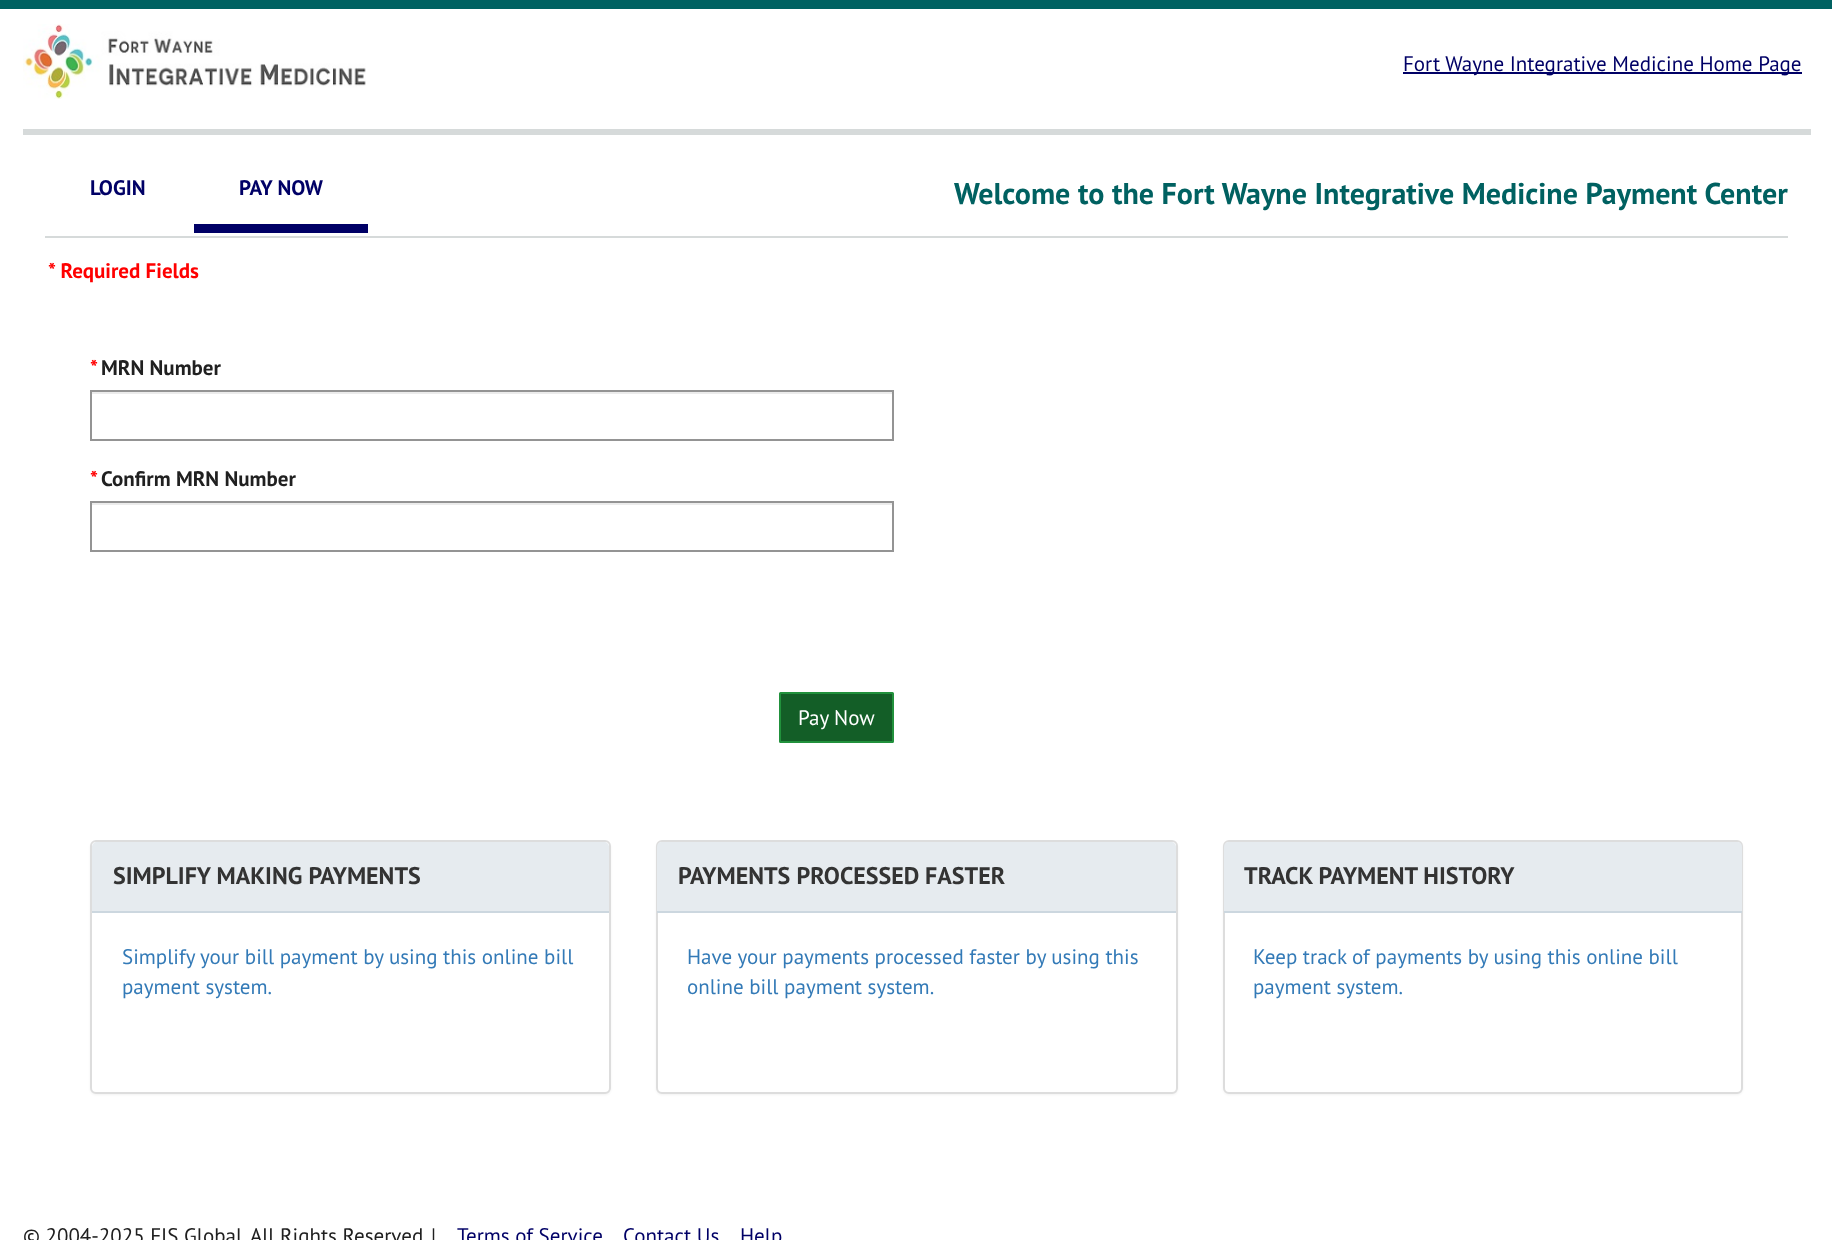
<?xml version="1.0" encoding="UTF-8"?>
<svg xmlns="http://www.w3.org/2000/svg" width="1832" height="1240">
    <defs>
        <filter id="blur1" x="-50%" y="-200%" width="200%" height="500%"><feGaussianBlur stdDeviation="1"/></filter>
    </defs>
    <rect width="100%" height="100%" fill="#FFFFFF"/>
    <rect x="0" y="0" width="1832" height="9" fill="#006161"/>
    <image x="23" y="24" width="343" height="75" href="img_01.png"/>
    <rect x="1403" y="72" width="399" height="2" fill="#000066"/>
    <text x="1403" y="71" font-family="PT Sans" font-size="21" fill="#000066">Fort Wayne Integrative Medicine Home Page</text>
    <rect x="23" y="129" width="1788" height="6" fill="#D6DADA"/>
    <rect x="45" y="236" width="1743" height="2" fill="#D6DADA"/>
    <text x="90" y="195" font-family="PT Sans" font-size="21" font-weight="700" fill="#000066">LOGIN</text>
    <rect x="194" y="224" width="174" height="9" fill="#000066"/>
    <text x="239" y="195" font-family="PT Sans" font-size="21" font-weight="700" fill="#000066">PAY NOW</text>
    <text x="954" y="204" font-family="PT Sans" font-size="30" font-weight="700" fill="#006161">Welcome to the Fort Wayne Integrative Medicine Payment Center</text>
    <text x="48" y="278" font-family="PT Sans" font-size="21" font-weight="700" fill="#FF0000">* Required Fields</text>
    <text x="90" y="375" font-family="PT Sans" font-size="21" font-weight="700" fill="#FF0000">*</text>
    <text x="101" y="375" font-family="PT Sans" font-size="21" font-weight="700" fill="#202020">MRN Number</text>
    <rect x="92" y="392" width="801" height="2" fill="#ECECEC"/>
    <rect x="91" y="391" width="802" height="49" fill="none" stroke="#949494" stroke-width="2"/>
    <text x="90" y="486" font-family="PT Sans" font-size="21" font-weight="700" fill="#FF0000">*</text>
    <text x="101" y="486" font-family="PT Sans" font-size="21" font-weight="700" fill="#202020">Confirm MRN Number</text>
    <rect x="92" y="503" width="801" height="2" fill="#ECECEC"/>
    <rect x="91" y="502" width="802" height="49" fill="none" stroke="#949494" stroke-width="2"/>
    <rect x="780" y="693" width="113" height="49" rx="0.5" fill="#135E27" stroke="#21913C" stroke-width="2"/>
    <text x="798" y="725" font-family="PT Sans" font-size="21" fill="#FFFFFF">Pay Now</text>
    <rect x="90" y="842" width="521" height="253" rx="6" fill="#000000" fill-opacity="0.05" filter="url(#blur1)"/>
    <rect x="91" y="841" width="519" height="252" rx="5" fill="#FFFFFF" stroke="#DDDDDD" stroke-width="2"/>
    <path d="M 97 842 H 604 C 607 842 609 844 609 847 V 912 H 92 V 847 C 92 844 94 842 97 842 Z" fill="#E6EBEF"/>
    <rect x="92" y="911" width="517" height="2" fill="#CCD7DF"/>
    <text x="113" y="884" font-family="PT Sans" font-size="24" font-weight="700" fill="#333333">SIMPLIFY MAKING PAYMENTS</text>
    <text font-family="PT Sans" font-size="21" fill="#337AB7">
        <tspan x="122" y="964">Simplify your bill payment by using this online bill</tspan>
        <tspan x="122" y="994">payment system.</tspan>
    </text>
    <rect x="656" y="842" width="522" height="253" rx="6" fill="#000000" fill-opacity="0.05" filter="url(#blur1)"/>
    <rect x="657" y="841" width="520" height="252" rx="5" fill="#FFFFFF" stroke="#DDDDDD" stroke-width="2"/>
    <path d="M 662 842 H 1171 C 1174 842 1176 844 1176 847 V 912 H 657 V 847 C 657 844 659 842 662 842 Z" fill="#E6EBEF"/>
    <rect x="657" y="911" width="519" height="2" fill="#CCD7DF"/>
    <text x="678" y="884" font-family="PT Sans" font-size="24" font-weight="700" fill="#333333">PAYMENTS PROCESSED FASTER</text>
    <text font-family="PT Sans" font-size="21" fill="#337AB7">
        <tspan x="687" y="964">Have your payments processed faster by using this</tspan>
        <tspan x="687" y="994">online bill payment system.</tspan>
    </text>
    <rect x="1223" y="842" width="520" height="253" rx="6" fill="#000000" fill-opacity="0.05" filter="url(#blur1)"/>
    <rect x="1224" y="841" width="518" height="252" rx="5" fill="#FFFFFF" stroke="#DDDDDD" stroke-width="2"/>
    <path d="M 1229 842 H 1737 C 1740 842 1742 844 1742 847 V 912 H 1224 V 847 C 1224 844 1226 842 1229 842 Z" fill="#E6EBEF"/>
    <rect x="1224" y="911" width="518" height="2" fill="#CCD7DF"/>
    <text x="1244" y="884" font-family="PT Sans" font-size="24" font-weight="700" fill="#333333">TRACK PAYMENT HISTORY</text>
    <text font-family="PT Sans" font-size="21" fill="#337AB7">
        <tspan x="1253" y="964">Keep track of payments by using this online bill</tspan>
        <tspan x="1253" y="994">payment system.</tspan>
    </text>
    <text x="23" y="1243" font-family="PT Sans" font-size="21" fill="#202020">© 2004-2025 FIS Global. All Rights Reserved</text>
    <text x="431" y="1243" font-family="PT Sans" font-size="21" fill="#202020">|</text>
    <text x="457" y="1243" font-family="PT Sans" font-size="21" fill="#000066">Terms of Service</text>
    <text x="623" y="1243" font-family="PT Sans" font-size="21" fill="#000066">Contact Us</text>
    <text x="740" y="1243" font-family="PT Sans" font-size="21" fill="#000066">Help</text>
</svg>
